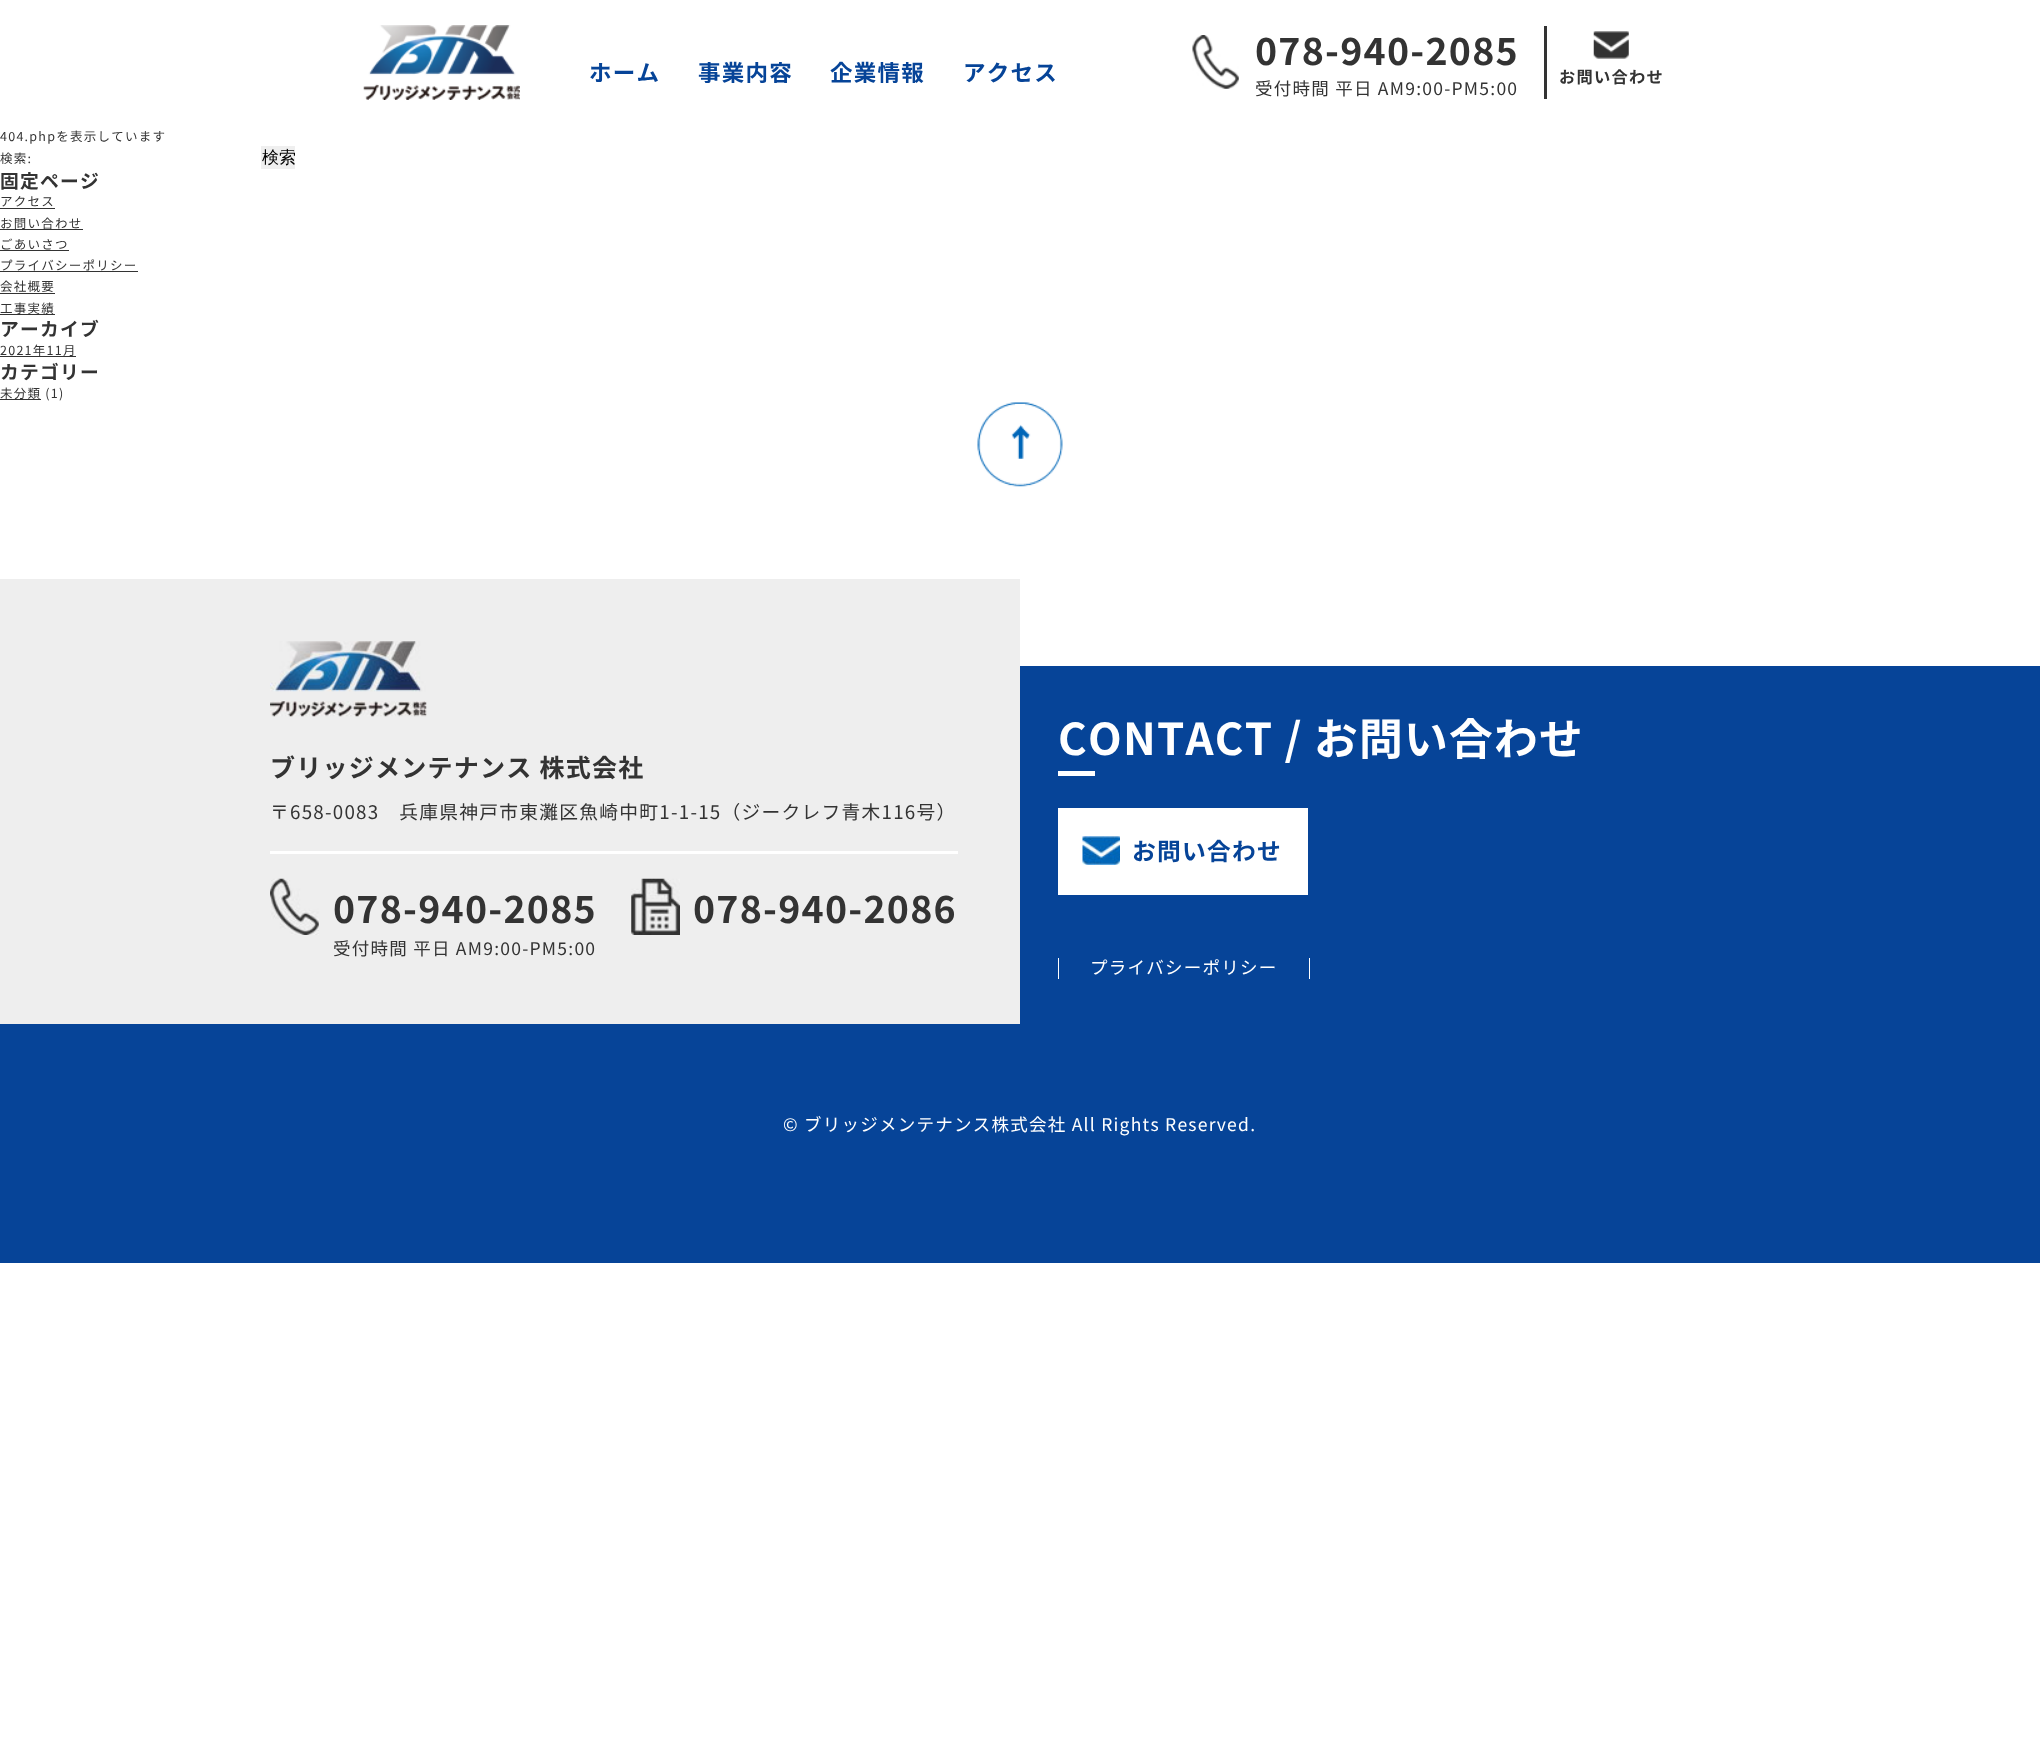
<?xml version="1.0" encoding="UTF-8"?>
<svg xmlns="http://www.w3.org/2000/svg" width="2040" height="1756">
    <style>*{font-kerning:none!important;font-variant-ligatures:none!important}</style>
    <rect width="100%" height="100%" fill="#FFFFFF"/>
    <image x="363" y="25" width="157" height="75" href="img_01.png"/>
    <text x="589" y="81" font-family="Noto Sans JP" font-size="22.5" font-weight="700" letter-spacing="1.25" fill="#064498">ホーム</text>
    <text x="698" y="81" font-family="Noto Sans JP" font-size="22.5" font-weight="700" letter-spacing="1.25" fill="#064498">事業内容</text>
    <text x="830" y="81" font-family="Noto Sans JP" font-size="22.5" font-weight="700" letter-spacing="1.25" fill="#064498">企業情報</text>
    <text x="963" y="81" font-family="Noto Sans JP" font-size="22.5" font-weight="700" letter-spacing="1.25" fill="#064498">アクセス</text>
    <image x="1192" y="35" width="47" height="54" href="img_02.png"/>
    <rect x="1544" y="26" width="3" height="73" fill="#333333"/>
    <text x="1255" y="65" font-family="Noto Sans JP" font-size="37.5" font-weight="700" letter-spacing="1.25" fill="#333333">078-940-2085</text>
    <text x="1255" y="95" font-family="Noto Sans JP" font-size="17.5" letter-spacing="1.25" fill="#333333">受付時間 平日 AM9:00-PM5:00</text>
    <image x="1593" y="31" width="36" height="28" href="img_03.png"/>
    <text x="1559" y="83" font-family="Noto Sans JP" font-size="16.25" font-weight="700" letter-spacing="1.25" fill="#333333">お問い合わせ</text>
    <text font-family="Noto Sans JP" font-size="12.5" letter-spacing="1.25" fill="#333333">
        <tspan x="0" y="141">404.phpを表示しています</tspan>
        <tspan x="0" y="163">検索:</tspan>
    </text>
    <rect x="261" y="146" width="34" height="23" fill="#EFEFEF"/>
    <text x="262" y="163" font-family="WenQuanYi Zen Hei" font-size="17" font-weight="500" fill="#000000">検索</text>
    <text x="0" y="188" font-family="Noto Sans JP" font-size="18.75" font-weight="700" letter-spacing="1.25" fill="#333333">固定ページ</text>
    <text x="0" y="206" font-family="Noto Sans JP" font-size="12.5" letter-spacing="1.25" fill="#333333">アクセス</text>
    <rect x="0" y="208" width="55" height="1" fill="#333333"/>
    <text x="0" y="228" font-family="Noto Sans JP" font-size="12.5" letter-spacing="1.25" fill="#333333">お問い合わせ</text>
    <rect x="0" y="229" width="83" height="1" fill="#333333"/>
    <text x="0" y="249" font-family="Noto Sans JP" font-size="12.5" letter-spacing="1.25" fill="#333333">ごあいさつ</text>
    <rect x="0" y="250" width="69" height="1" fill="#333333"/>
    <text x="0" y="270" font-family="Noto Sans JP" font-size="12.5" letter-spacing="1.25" fill="#333333">プライバシーポリシー</text>
    <rect x="0" y="271" width="138" height="1" fill="#333333"/>
    <text x="0" y="291" font-family="Noto Sans JP" font-size="12.5" letter-spacing="1.25" fill="#333333">会社概要</text>
    <rect x="0" y="293" width="55" height="1" fill="#333333"/>
    <rect x="0" y="314" width="55" height="1" fill="#333333"/>
    <text x="0" y="313" font-family="Noto Sans JP" font-size="12.5" letter-spacing="1.25" fill="#333333">工事実績</text>
    <text x="0" y="336" font-family="Noto Sans JP" font-size="18.75" font-weight="700" letter-spacing="1.25" fill="#333333">アーカイブ</text>
    <text x="0" y="355" font-family="Noto Sans JP" font-size="12.5" letter-spacing="1.25" fill="#333333">2021年11月</text>
    <rect x="0" y="356" width="76" height="1" fill="#333333"/>
    <text x="0" y="379" font-family="Noto Sans JP" font-size="18.75" font-weight="700" letter-spacing="1.25" fill="#333333">カテゴリー</text>
    <rect x="0" y="399" width="41" height="1" fill="#333333"/>
    <text x="0" y="398" font-family="Noto Sans JP" font-size="12.5" letter-spacing="1.25" fill="#333333">未分類 (1)</text>
    <image x="977" y="402" width="86" height="85" href="img_04.png"/>
    <rect x="0" y="666" width="2040" height="597" fill="#064498"/>
    <rect x="0" y="579" width="1020" height="445" fill="#EEEEEE"/>
    <image x="270" y="641" width="157" height="76" href="img_05.png"/>
    <text x="270" y="777" font-family="Noto Sans JP" font-size="25" font-weight="700" letter-spacing="1.25" fill="#333333">ブリッジメンテナンス 株式会社</text>
    <rect x="270" y="851" width="688" height="3" fill="#FFFFFF"/>
    <text x="270" y="819" font-family="Noto Sans JP" font-size="18.75" letter-spacing="1.25" fill="#333333">〒658-0083　兵庫県神戸市東灘区魚崎中町1-1-15（ジークレフ青木116号）</text>
    <image x="270" y="878" width="49" height="57" href="img_06.png"/>
    <text x="333" y="923" font-family="Noto Sans JP" font-size="37.5" font-weight="700" letter-spacing="1.25" fill="#333333">078-940-2085</text>
    <image x="631" y="878" width="49" height="57" href="img_07.png"/>
    <text x="693" y="923" font-family="Noto Sans JP" font-size="37.5" font-weight="700" letter-spacing="1.25" fill="#333333">078-940-2086</text>
    <text x="333" y="955" font-family="Noto Sans JP" font-size="17.5" letter-spacing="1.25" fill="#333333">受付時間 平日 AM9:00-PM5:00</text>
    <text x="1058" y="755" font-family="Noto Sans JP" font-size="43.75" font-weight="700" letter-spacing="1.25" fill="#FFFFFF">CONTACT / お問い合わせ</text>
    <rect x="1058" y="771" width="37" height="5" fill="#FFFFFF"/>
    <rect x="1058" y="808" width="250" height="87" fill="#FFFFFF"/>
    <image x="1082" y="836" width="38" height="29" href="img_08.png"/>
    <text x="1132" y="860" font-family="Noto Sans JP" font-size="23.75" font-weight="700" letter-spacing="1.25" fill="#064498">お問い合わせ</text>
    <rect x="1309" y="958" width="1" height="21" fill="#FFFFFF"/>
    <rect x="1058" y="958" width="1" height="21" fill="#FFFFFF"/>
    <text x="1090" y="974" font-family="Noto Sans JP" font-size="17.5" letter-spacing="1.25" fill="#FFFFFF">プライバシーポリシー</text>
    <text x="783" y="1131" font-family="Noto Sans JP" font-size="17.5" letter-spacing="1.25" fill="#FFFFFF">© ブリッジメンテナンス株式会社 All Rights Reserved.</text>
</svg>
